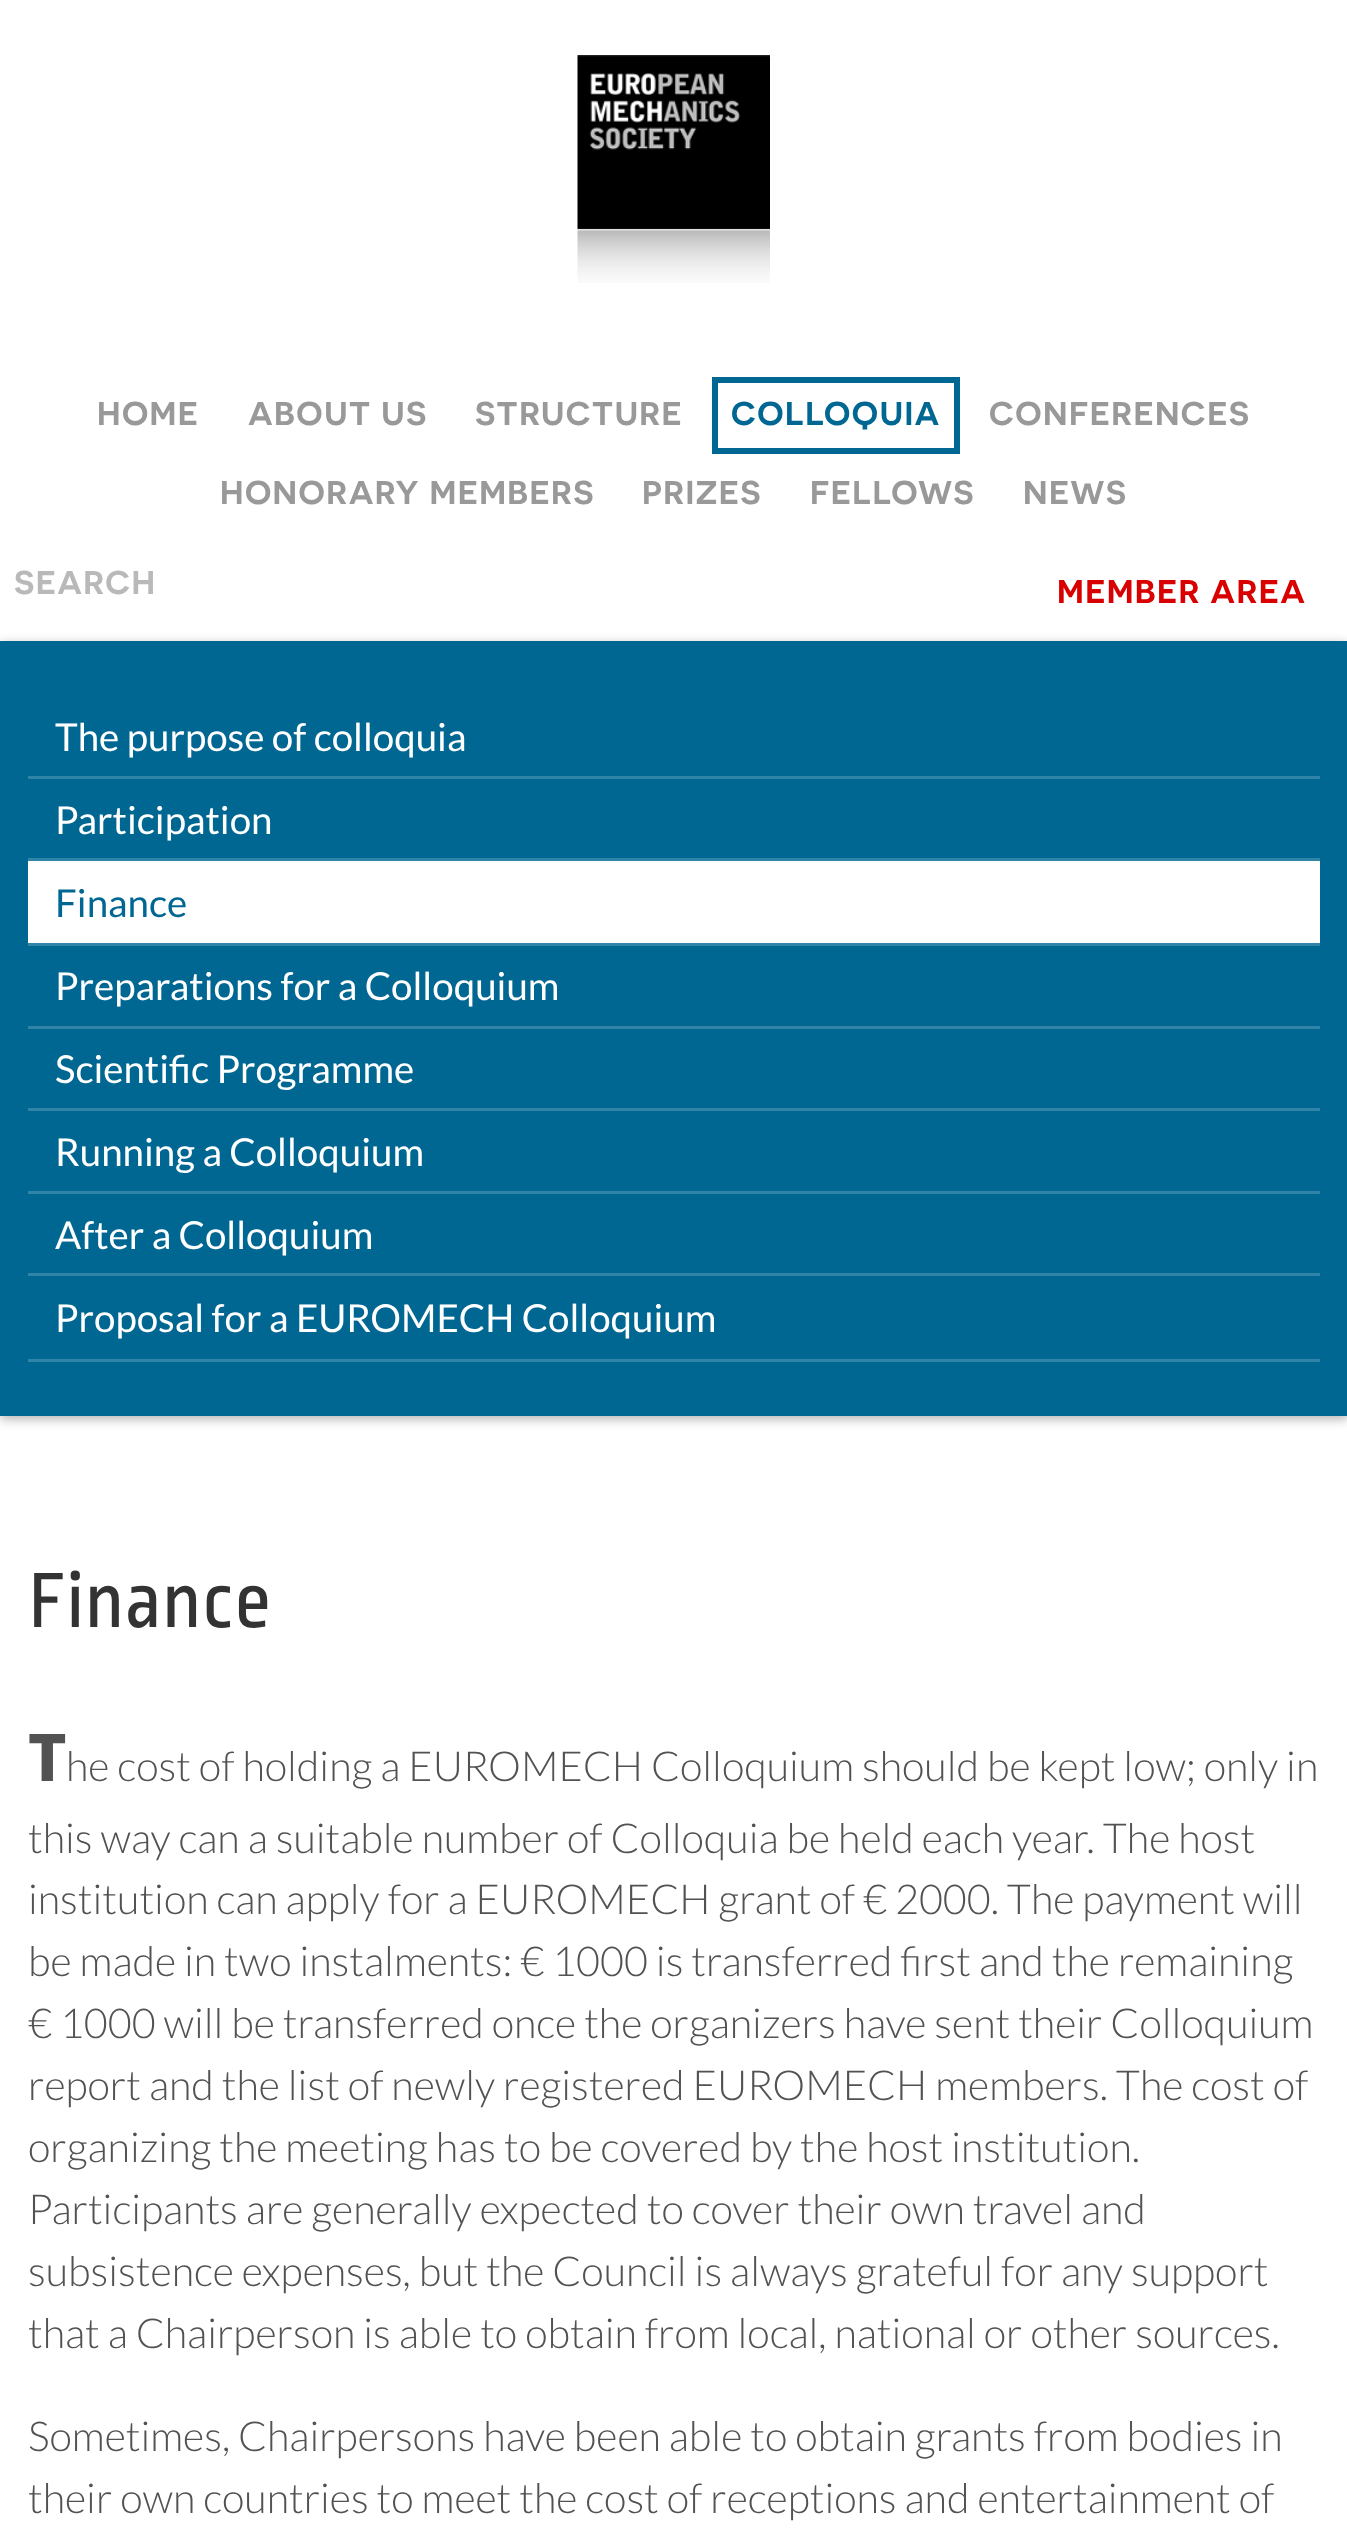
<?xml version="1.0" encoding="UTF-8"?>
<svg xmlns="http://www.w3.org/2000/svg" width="1347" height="2529">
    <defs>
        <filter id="blur1" x="-50%" y="-200%" width="200%" height="500%"><feGaussianBlur stdDeviation="5.5"/></filter>
    </defs>
    <rect width="100%" height="100%" fill="#FFFFFF"/>
    <image x="577" y="55" width="193" height="228" href="img_01.png"/>
    <text x="97" y="425" font-family="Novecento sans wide" font-size="33" font-weight="600" letter-spacing="1.4" fill="#999999">HOME</text>
    <text x="248" y="425" font-family="Novecento sans wide" font-size="33" font-weight="600" letter-spacing="1.4" fill="#999999">ABOUT US</text>
    <text x="475" y="425" font-family="Novecento sans wide" font-size="33" font-weight="600" letter-spacing="1.4" fill="#999999">STRUCTURE</text>
    <rect x="715" y="380" width="242" height="71" fill="none" stroke="#006792" stroke-width="6"/>
    <text x="731" y="425" font-family="Novecento sans wide" font-size="33" font-weight="600" letter-spacing="1.4" fill="#006792">COLLOQUIA</text>
    <text x="989" y="425" font-family="Novecento sans wide" font-size="33" font-weight="600" letter-spacing="1.4" fill="#999999">CONFERENCES</text>
    <text x="220" y="504" font-family="Novecento sans wide" font-size="33" font-weight="600" letter-spacing="1.4" fill="#999999">HONORARY MEMBERS</text>
    <text x="642" y="504" font-family="Novecento sans wide" font-size="33" font-weight="600" letter-spacing="1.4" fill="#999999">PRIZES</text>
    <text x="810" y="504" font-family="Novecento sans wide" font-size="33" font-weight="600" letter-spacing="1.4" fill="#999999">FELLOWS</text>
    <text x="1023" y="504" font-family="Novecento sans wide" font-size="33" font-weight="600" letter-spacing="1.4" fill="#999999">NEWS</text>
    <text x="14" y="594" font-family="Novecento sans wide" font-size="33" font-weight="600" letter-spacing="1.4" fill="#B9B9B9">SEARCH</text>
    <text x="1057" y="603" font-family="Novecento sans wide" font-size="33" font-weight="600" letter-spacing="1.4" fill="#D80000">MEMBER AREA</text>
    <rect x="0" y="644" width="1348" height="775" fill="#000000" fill-opacity="0.3" filter="url(#blur1)"/>
    <rect x="0" y="641" width="1347" height="775" fill="#006792"/>
    <rect x="28" y="776" width="1292" height="3" fill="#3084A7"/>
    <text x="55" y="751" font-family="Lato" font-size="38.5" fill="#FFFFFF">The purpose of colloquia</text>
    <rect x="28" y="858" width="1292" height="3" fill="#3084A7"/>
    <text x="55" y="834" font-family="Lato" font-size="38.5" fill="#FFFFFF">Participation</text>
    <rect x="28" y="861" width="1292" height="82" fill="#FFFFFF"/>
    <rect x="28" y="943" width="1292" height="3" fill="#3084A7"/>
    <text x="55" y="917" font-family="Lato" font-size="38.5" fill="#006792">Finance</text>
    <rect x="28" y="1026" width="1292" height="3" fill="#3084A7"/>
    <text x="55" y="1000" font-family="Lato" font-size="38.5" fill="#FFFFFF">Preparations for a Colloquium</text>
    <rect x="28" y="1108" width="1292" height="3" fill="#3084A7"/>
    <text x="55" y="1083" font-family="Lato" font-size="38.5" fill="#FFFFFF">Scientific Programme</text>
    <rect x="28" y="1191" width="1292" height="3" fill="#3084A7"/>
    <text x="55" y="1166" font-family="Lato" font-size="38.5" fill="#FFFFFF">Running a Colloquium</text>
    <rect x="28" y="1273" width="1292" height="3" fill="#3084A7"/>
    <text x="55" y="1249" font-family="Lato" font-size="38.5" fill="#FFFFFF">After a Colloquium</text>
    <rect x="28" y="1359" width="1292" height="3" fill="#3084A7"/>
    <text x="55" y="1332" font-family="Lato" font-size="38.5" fill="#FFFFFF">Proposal for a EUROMECH Colloquium</text>
    <text x="28" y="1627" font-family="Ropa Sans" font-size="82.5" fill="#333333">Finance</text>
    <text x="28" y="1781" font-family="Noto Sans" font-size="66" font-weight="800" fill="#525252">T</text>
    <text x="66" y="1781" font-family="Lato" font-size="41.25" font-weight="300" fill="#525252">he cost of holding a EUROMECH Colloquium should be kept low; only in</text>
    <text font-family="Lato" font-size="41.25" font-weight="300" fill="#525252">
        <tspan x="28" y="1853">this way can a suitable number of Colloquia be held each year. The host</tspan>
        <tspan x="28" y="1914">institution can apply for a EUROMECH grant of € 2000. The payment will</tspan>
        <tspan x="28" y="1976">be made in two instalments: € 1000 is transferred first and the remaining</tspan>
        <tspan x="28" y="2038">€ 1000 will be transferred once the organizers have sent their Colloquium</tspan>
        <tspan x="28" y="2100">report and the list of newly registered EUROMECH members. The cost of</tspan>
        <tspan x="28" y="2162">organizing the meeting has to be covered by the host institution.</tspan>
        <tspan x="28" y="2224">Participants are generally expected to cover their own travel and</tspan>
        <tspan x="28" y="2286">subsistence expenses, but the Council is always grateful for any support</tspan>
        <tspan x="28" y="2348">that a Chairperson is able to obtain from local, national or other sources.</tspan>
    </text>
    <text font-family="Lato" font-size="41.25" font-weight="300" fill="#525252">
        <tspan x="28" y="2451">Sometimes, Chairpersons have been able to obtain grants from bodies in</tspan>
        <tspan x="28" y="2513">their own countries to meet the cost of receptions and entertainment of</tspan>
    </text>
</svg>
